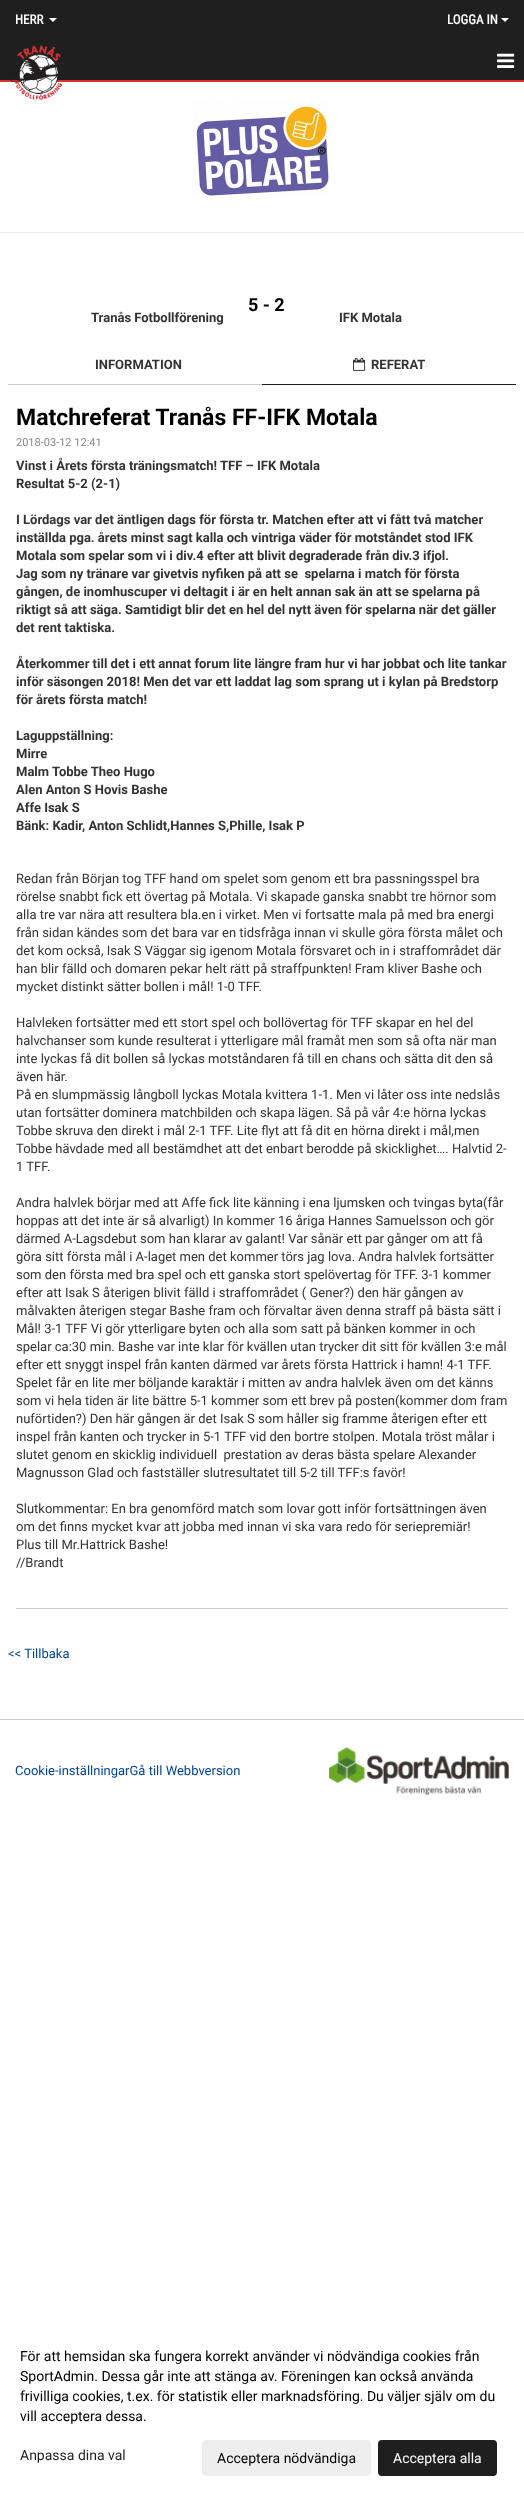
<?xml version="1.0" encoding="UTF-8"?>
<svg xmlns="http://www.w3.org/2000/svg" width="524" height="2496">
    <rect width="100%" height="100%" fill="#FFFFFF"/>
    <rect x="0" y="0" width="524" height="80" fill="#1F1F1F"/>
    <text x="15" y="24" font-family="Roboto Condensed" font-size="13" font-weight="700" fill="#FFFFFF">HERR</text>
    <path d="M 49 18 H 57 L 53 22 Z" fill="#FFFFFF"/>
    <text x="447" y="24" font-family="Roboto Condensed" font-size="13" font-weight="700" fill="#FFFFFF">LOGGA IN</text>
    <path d="M 501 18 H 509 L 505 22 Z" fill="#FFFFFF"/>
    <rect x="0" y="80" width="524" height="2" fill="#D93330"/>
    <image x="10" y="45" width="59" height="55" href="img_01.png"/>
    <image x="497" y="53" width="18" height="15" href="img_02.png"/>
    <image x="193" y="100" width="136" height="96" href="img_03.png"/>
    <rect x="0" y="232" width="524" height="1" fill="#EEEEEE"/>
    <text x="248" y="311" font-family="Roboto" font-size="18" font-weight="700" fill="#000000">5 - 2</text>
    <text x="91" y="322" font-family="Roboto" font-size="13" font-weight="700" fill="#333333">Tranås Fotbollförening</text>
    <text x="339" y="322" font-family="Roboto" font-size="13" font-weight="700" fill="#333333">IFK Motala</text>
    <rect x="8" y="384" width="254" height="1" fill="#CCCCCC"/>
    <text x="95" y="369" font-family="Roboto" font-size="13" font-weight="700" fill="#333333">INFORMATION</text>
    <rect x="262" y="384" width="254" height="1" fill="#1F1F1F"/>
    <image x="353" y="357" width="13" height="14" href="img_04.png"/>
    <text x="371" y="369" font-family="Roboto" font-size="13" font-weight="700" fill="#333333">REFERAT</text>
    <text x="16" y="425" font-family="Roboto" font-size="23" font-weight="700" fill="#000000">Matchreferat Tranås FF-IFK Motala</text>
    <text x="16" y="446" font-family="Roboto" font-size="11" fill="#888888">2018-03-12 12:41</text>
    <text font-family="Roboto" font-size="13" font-weight="700" fill="#333333">
        <tspan x="16" y="470">Vinst i Årets första träningsmatch! TFF – IFK Motala</tspan>
        <tspan x="16" y="488">Resultat 5-2 (2-1)</tspan>
    </text>
    <text font-family="Roboto" font-size="13" font-weight="700" fill="#333333" xml:space="preserve"><tspan x="16" y="524">I Lördags var det äntligen dags för första tr. Matchen efter att vi fått två matcher</tspan><tspan x="16" y="542">inställda pga. årets minst sagt kalla och vintriga väder för motståndet stod IFK</tspan><tspan x="16" y="560">Motala som spelar som vi i div.4 efter att blivit degraderade från div.3 ifjol.</tspan><tspan x="16" y="578">Jag som ny tränare var givetvis nyfiken på att se  spelarna i match för första</tspan><tspan x="16" y="596">gången, de inomhuscuper vi deltagit i är en helt annan sak än att se spelarna på</tspan><tspan x="16" y="614">riktigt så att säga. Samtidigt blir det en hel del nytt även för spelarna när det gäller</tspan><tspan x="16" y="632">det rent taktiska.</tspan></text>
    <text font-family="Roboto" font-size="13" font-weight="700" fill="#333333">
        <tspan x="16" y="668">Återkommer till det i ett annat forum lite längre fram hur vi har jobbat och lite tankar</tspan>
        <tspan x="16" y="686">inför säsongen 2018! Men det var ett laddat lag som sprang ut i kylan på Bredstorp</tspan>
        <tspan x="16" y="704">för årets första match!</tspan>
    </text>
    <text font-family="Roboto" font-size="13" font-weight="700" fill="#333333">
        <tspan x="16" y="740">Laguppställning:</tspan>
        <tspan x="16" y="758">Mirre</tspan>
        <tspan x="16" y="776">Malm Tobbe Theo Hugo</tspan>
        <tspan x="16" y="794">Alen Anton S Hovis Bashe</tspan>
        <tspan x="16" y="812">Affe Isak S</tspan>
        <tspan x="16" y="830">Bänk: Kadir, Anton Schlidt,Hannes S,Phille, Isak P</tspan>
    </text>
    <text font-family="Roboto" font-size="13" fill="#333333">
        <tspan x="16" y="883">Redan från Början tog TFF hand om spelet som genom ett bra passningsspel bra</tspan>
        <tspan x="16" y="901">rörelse snabbt fick ett övertag på Motala. Vi skapade ganska snabbt tre hörnor som</tspan>
        <tspan x="16" y="919">alla tre var nära att resultera bla.en i virket. Men vi fortsatte mala på med bra energi</tspan>
        <tspan x="16" y="937">från sidan kändes som det bara var en tidsfråga innan vi skulle göra första målet och</tspan>
        <tspan x="16" y="955">det kom också, Isak S Väggar sig igenom Motala försvaret och in i straffområdet där</tspan>
        <tspan x="16" y="973">han blir fälld och domaren pekar helt rätt på straffpunkten! Fram kliver Bashe och</tspan>
        <tspan x="16" y="991">mycket distinkt sätter bollen i mål! 1-0 TFF.</tspan>
    </text>
    <text font-family="Roboto" font-size="13" fill="#333333">
        <tspan x="16" y="1027">Halvleken fortsätter med ett stort spel och bollövertag för TFF skapar en hel del</tspan>
        <tspan x="16" y="1045">halvchanser som kunde resulterat i ytterligare mål framåt men som så ofta när man</tspan>
        <tspan x="16" y="1063">inte lyckas få dit bollen så lyckas motståndaren få till en chans och sätta dit den så</tspan>
        <tspan x="16" y="1081">även här.</tspan>
        <tspan x="16" y="1099">På en slumpmässig långboll lyckas Motala kvittera 1-1. Men vi låter oss inte nedslås</tspan>
        <tspan x="16" y="1117">utan fortsätter dominera matchbilden och skapa lägen. Så på vår 4:e hörna lyckas</tspan>
        <tspan x="16" y="1135">Tobbe skruva den direkt i mål 2-1 TFF. Lite flyt att få dit en hörna direkt i mål,men</tspan>
        <tspan x="16" y="1153">Tobbe hävdade med all bestämdhet att det enbart berodde på skicklighet…. Halvtid 2-</tspan>
        <tspan x="16" y="1171">1 TFF.</tspan>
    </text>
    <text font-family="Roboto" font-size="13" fill="#333333" xml:space="preserve"><tspan x="16" y="1207">Andra halvlek börjar med att Affe fick lite känning i ena ljumsken och tvingas byta(får</tspan><tspan x="16" y="1225">hoppas att det inte är så alvarligt) In kommer 16 åriga Hannes Samuelsson och gör</tspan><tspan x="16" y="1243">därmed A-Lagsdebut som han klarar av galant! Var sånär ett par gånger om att få</tspan><tspan x="16" y="1261">göra sitt första mål i A-laget men det kommer törs jag lova. Andra halvlek fortsätter</tspan><tspan x="16" y="1279">som den första med bra spel och ett ganska stort spelövertag för TFF. 3-1 kommer</tspan><tspan x="16" y="1297">efter att Isak S återigen blivit fälld i straffområdet ( Gener?) den här gången av</tspan><tspan x="16" y="1315">målvakten återigen stegar Bashe fram och förvaltar även denna straff på bästa sätt i</tspan><tspan x="16" y="1333">Mål! 3-1 TFF Vi gör ytterligare byten och alla som satt på bänken kommer in och</tspan><tspan x="16" y="1351">spelar ca:30 min. Bashe var inte klar för kvällen utan trycker dit sitt för kvällen 3:e mål</tspan><tspan x="16" y="1369">efter ett snyggt inspel från kanten därmed var årets första Hattrick i hamn! 4-1 TFF.</tspan><tspan x="16" y="1387">Spelet får en lite mer böljande karaktär i mitten av andra halvlek även om det känns</tspan><tspan x="16" y="1405">som vi hela tiden är lite bättre 5-1 kommer som ett brev på posten(kommer dom fram</tspan><tspan x="16" y="1423">nuförtiden?) Den här gången är det Isak S som håller sig framme återigen efter ett</tspan><tspan x="16" y="1441">inspel från kanten och trycker in 5-1 TFF vid den bortre stolpen. Motala tröst målar i</tspan><tspan x="16" y="1459">slutet genom en skicklig individuell  prestation av deras bästa spelare Alexander</tspan><tspan x="16" y="1477">Magnusson Glad och fastställer slutresultatet till 5-2 till TFF:s favör!</tspan></text>
    <text font-family="Roboto" font-size="13" fill="#333333">
        <tspan x="16" y="1513">Slutkommentar: En bra genomförd match som lovar gott inför fortsättningen även</tspan>
        <tspan x="16" y="1531">om det finns mycket kvar att jobba med innan vi ska vara redo för seriepremiär!</tspan>
        <tspan x="16" y="1549">Plus till Mr.Hattrick Bashe!</tspan>
        <tspan x="16" y="1567">//Brandt</tspan>
    </text>
    <rect x="16" y="1608" width="492" height="1" fill="#CCCCCC"/>
    <text x="8" y="1658" font-family="Roboto" font-size="13" fill="#004499">&lt;&lt; Tillbaka</text>
    <rect x="0" y="1719" width="524" height="1" fill="#CCCCCC"/>
    <text x="15" y="1775" font-family="Roboto" font-size="13" fill="#004499">Cookie-inställningarGå till Webbversion</text>
    <image x="329" y="1746" width="180" height="50" href="img_05.png"/>
    <text font-family="Roboto" font-size="14" fill="#000000">
        <tspan x="20" y="2361">För att hemsidan ska fungera korrekt använder vi nödvändiga cookies från</tspan>
        <tspan x="20" y="2381">SportAdmin. Dessa går inte att stänga av. Föreningen kan också använda</tspan>
        <tspan x="20" y="2401">frivilliga cookies, t.ex. för statistik eller marknadsföring. Du väljer själv om du</tspan>
        <tspan x="20" y="2421">vill acceptera dessa.</tspan>
    </text>
    <text x="20" y="2460" font-family="Roboto" font-size="14" fill="#1F1F1F">Anpassa dina val</text>
    <rect x="202" y="2440" width="169" height="36" rx="4" fill="#EEEEEE"/>
    <text x="217" y="2463" font-family="Roboto" font-size="14" fill="#000000">Acceptera nödvändiga</text>
    <rect x="378" y="2440" width="119" height="36" rx="4" fill="#1F1F1F"/>
    <text x="393" y="2463" font-family="Roboto" font-size="14" fill="#FFFFFF">Acceptera alla</text>
</svg>
